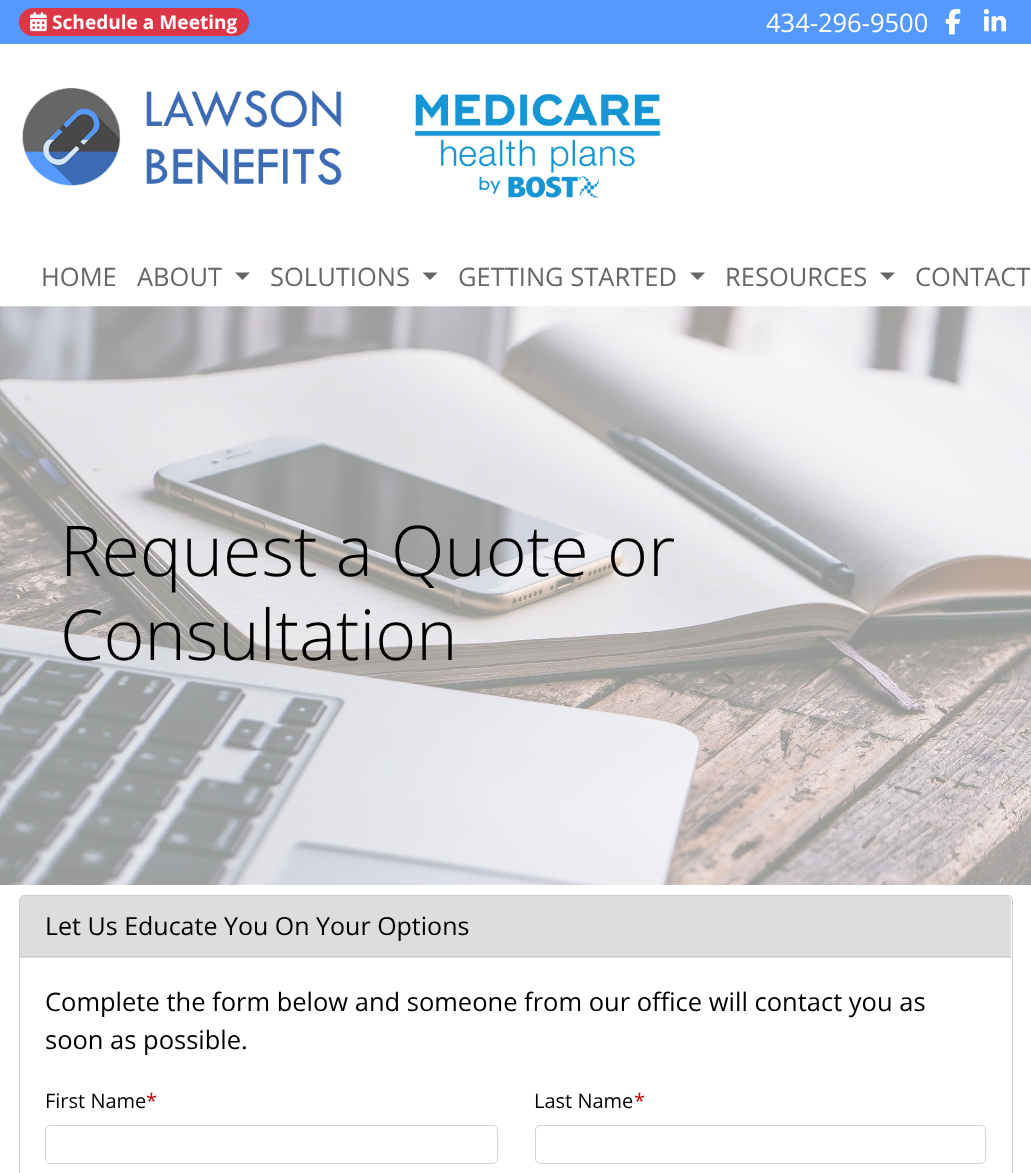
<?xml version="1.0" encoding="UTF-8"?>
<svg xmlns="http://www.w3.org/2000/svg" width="1031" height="1173">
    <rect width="100%" height="100%" fill="#FFFFFF"/>
    <rect x="0" y="0" width="1031" height="44" fill="#5599FF"/>
    <rect x="19" y="8" width="230" height="28" rx="14" fill="#DC3545"/>
    <image x="30" y="12" width="17" height="20" href="img_01.png"/>
    <text x="52" y="29" font-family="Open Sans" font-size="19.1" font-weight="700" fill="#FFFFFF">Schedule a Meeting</text>
    <text x="766" y="32" font-family="Open Sans" font-size="25.5" fill="#FFFFFF">434-296-9500</text>
    <image x="945" y="8" width="16" height="27" href="img_02.png"/>
    <image x="983" y="8" width="24" height="24" href="img_03.png"/>
    <image x="22" y="87" width="320" height="99" href="img_04.png"/>
    <image x="415" y="94" width="246" height="104" href="img_05.png"/>
    <text x="41" y="286" font-family="Open Sans" font-size="25.5" fill="#666666">HOME</text>
    <text x="137" y="286" font-family="Open Sans" font-size="25.5" fill="#666666">ABOUT</text>
    <path d="M 235 272.5 H 250 L 242.5 280 Z" fill="#666666"/>
    <text x="270" y="286" font-family="Open Sans" font-size="25.5" fill="#666666">SOLUTIONS</text>
    <path d="M 422.5 272.5 H 437.5 L 430 280 Z" fill="#666666"/>
    <text x="458" y="286" font-family="Open Sans" font-size="25.5" fill="#666666">GETTING STARTED</text>
    <path d="M 690 272.5 H 705 L 697.5 280 Z" fill="#666666"/>
    <text x="725" y="286" font-family="Open Sans" font-size="25.5" fill="#666666">RESOURCES</text>
    <path d="M 880 272.5 H 895 L 887.5 280 Z" fill="#666666"/>
    <text x="915" y="286" font-family="Open Sans" font-size="25.5" fill="#666666">CONTACT</text>
    <image x="0" y="306" width="1031" height="579" href="img_06.png"/>
    <text font-family="Open Sans" font-size="70" font-weight="300" fill="#000000">
        <tspan x="60" y="576">Request a Quote or</tspan>
        <tspan x="60" y="660">Consultation</tspan>
    </text>
    <rect x="19.5" y="895.5" width="993" height="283" rx="4.5" fill="none" stroke="#CCCCCC"/>
    <path d="M 24 896 H 1007 C 1009 896 1011 898 1011 900 V 958 H 20 V 900 C 20 898 22 896 24 896 Z" fill="#DDDDDD"/>
    <rect x="20" y="956" width="991" height="1" fill="#CCCCCC"/>
    <text x="45" y="935" font-family="Open Sans" font-size="25" fill="#000000">Let Us Educate You On Your Options</text>
    <text font-family="Open Sans" font-size="25.5" fill="#000000">
        <tspan x="45" y="1011">Complete the form below and someone from our office will contact you as</tspan>
        <tspan x="45" y="1049">soon as possible.</tspan>
    </text>
    <text x="45" y="1108" font-family="Open Sans" font-size="20" fill="#000000">First Name</text>
    <text x="146" y="1108" font-family="Open Sans" font-size="20" fill="#C10000">*</text>
    <rect x="45.5" y="1125.5" width="452" height="38" rx="4.5" fill="none" stroke="#CED4DA"/>
    <text x="534" y="1108" font-family="Open Sans" font-size="20" fill="#000000">Last Name</text>
    <text x="634" y="1108" font-family="Open Sans" font-size="20" fill="#C10000">*</text>
    <rect x="535.5" y="1125.5" width="450" height="38" rx="4.5" fill="none" stroke="#CED4DA"/>
</svg>
